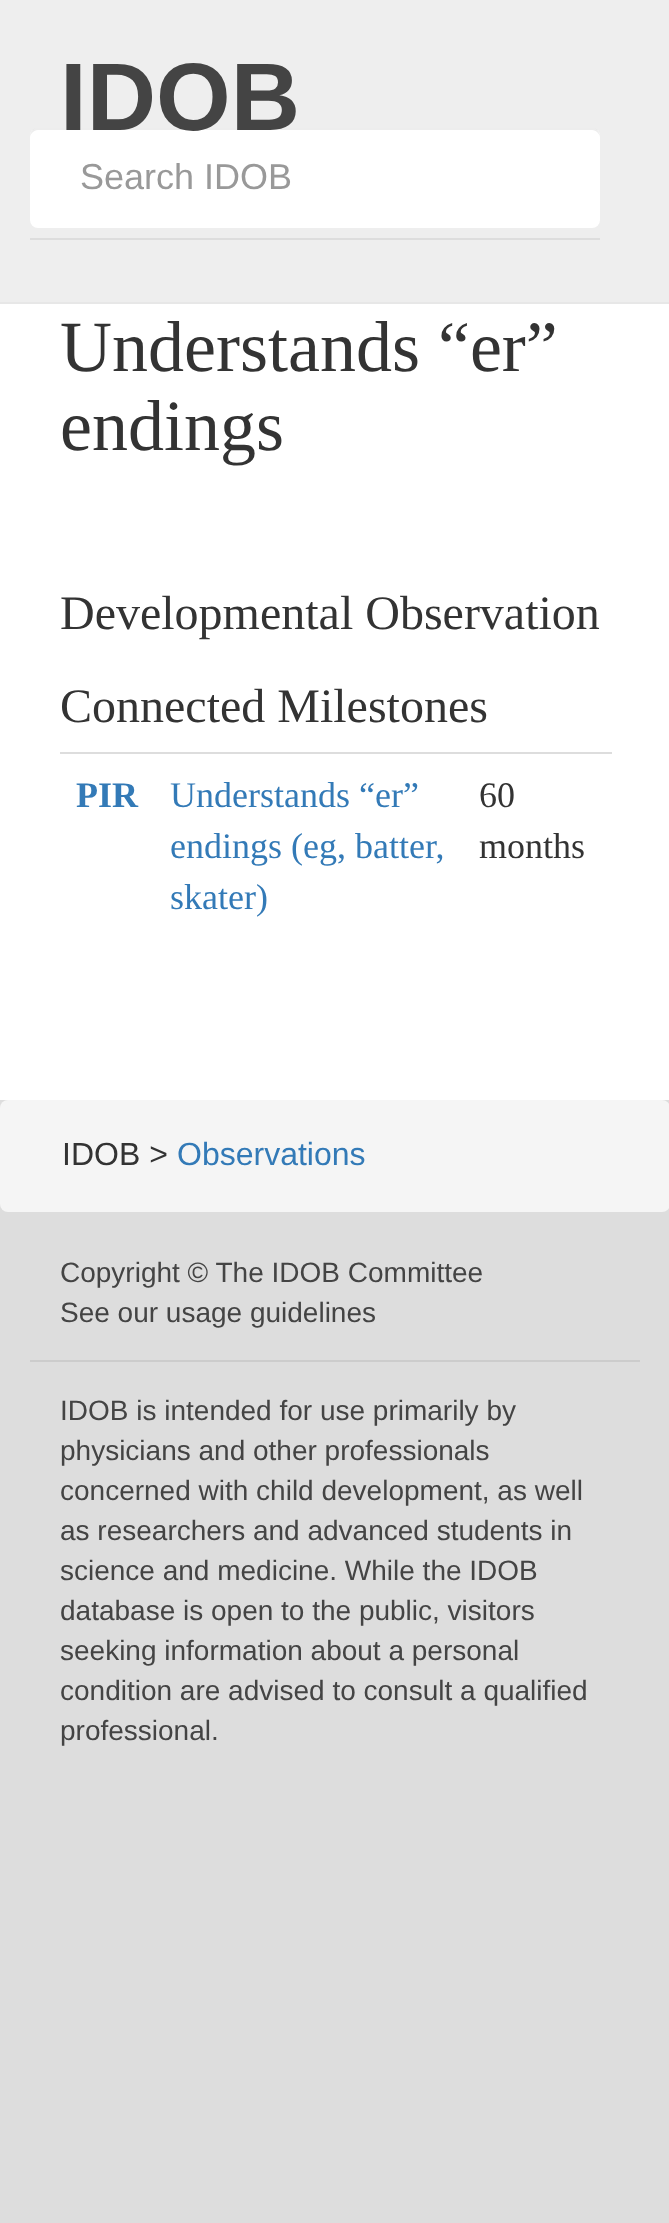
<?xml version="1.0" encoding="UTF-8"?>
<svg xmlns="http://www.w3.org/2000/svg" width="669" height="2223">
    <rect width="100%" height="100%" fill="#DDDDDD"/>
    <rect x="0" y="0" width="669" height="302" fill="#EEEEEE"/>
    <rect x="0" y="302" width="669" height="2" fill="#E7E7E7"/>
    <rect x="30" y="128" width="570" height="100" rx="8" fill="#FFFFFF"/>
    <path d="M 38 130 H 592 C 596 130 600 134 600 138 C 600 133 598 128 592 128 H 38 C 32 128 30 133 30 138 C 30 134 34 130 38 130 Z" fill="#000000" fill-opacity="0.07"/>
    <text x="60" y="130" font-family="Liberation Sans" font-size="96" font-weight="700" fill="#444444">IDOB</text>
    <text x="80" y="189" font-family="Liberation Sans" font-size="36" fill="#999999">Search IDOB</text>
    <rect x="30" y="238" width="570" height="2" fill="#DDDDDD"/>
    <rect x="0" y="304" width="669" height="796" fill="#FFFFFF"/>
    <text font-family="Liberation Serif" font-size="72" fill="#333333">
        <tspan x="60" y="371">Understands “er”</tspan>
        <tspan x="60" y="450">endings</tspan>
    </text>
    <text font-family="Liberation Serif" font-size="48" fill="#333333">
        <tspan x="60" y="629">Developmental Observation</tspan>
        <tspan x="60" y="722">Connected Milestones</tspan>
    </text>
    <text x="76" y="807" font-family="Liberation Serif" font-size="36" font-weight="700" fill="#337AB7">PIR</text>
    <text font-family="Liberation Serif" font-size="36" fill="#337AB7">
        <tspan x="170" y="807">Understands “er”</tspan>
        <tspan x="170" y="858">endings (eg, batter,</tspan>
        <tspan x="170" y="909">skater)</tspan>
    </text>
    <rect x="60" y="752" width="552" height="2" fill="#DDDDDD"/>
    <text font-family="Liberation Serif" font-size="36" fill="#333333">
        <tspan x="479" y="807">60</tspan>
        <tspan x="479" y="858">months</tspan>
    </text>
    <rect x="0" y="1100" width="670" height="112" rx="8" fill="#F5F5F5"/>
    <text x="62" y="1165" font-family="Liberation Sans" font-size="32" fill="#333333">IDOB &gt;</text>
    <text x="177" y="1165" font-family="Liberation Sans" font-size="32" fill="#337AB7">Observations</text>
    <text font-family="Liberation Sans" font-size="28" fill="#444444">
        <tspan x="60" y="1282">Copyright © The IDOB Committee</tspan>
        <tspan x="60" y="1322">See our usage guidelines</tspan>
    </text>
    <rect x="30" y="1360" width="610" height="2" fill="#CCCCCC"/>
    <text font-family="Liberation Sans" font-size="28" fill="#444444">
        <tspan x="60" y="1420">IDOB is intended for use primarily by</tspan>
        <tspan x="60" y="1460">physicians and other professionals</tspan>
        <tspan x="60" y="1500">concerned with child development, as well</tspan>
        <tspan x="60" y="1540">as researchers and advanced students in</tspan>
        <tspan x="60" y="1580">science and medicine. While the IDOB</tspan>
        <tspan x="60" y="1620">database is open to the public, visitors</tspan>
        <tspan x="60" y="1660">seeking information about a personal</tspan>
        <tspan x="60" y="1700">condition are advised to consult a qualified</tspan>
        <tspan x="60" y="1740">professional.</tspan>
    </text>
</svg>
